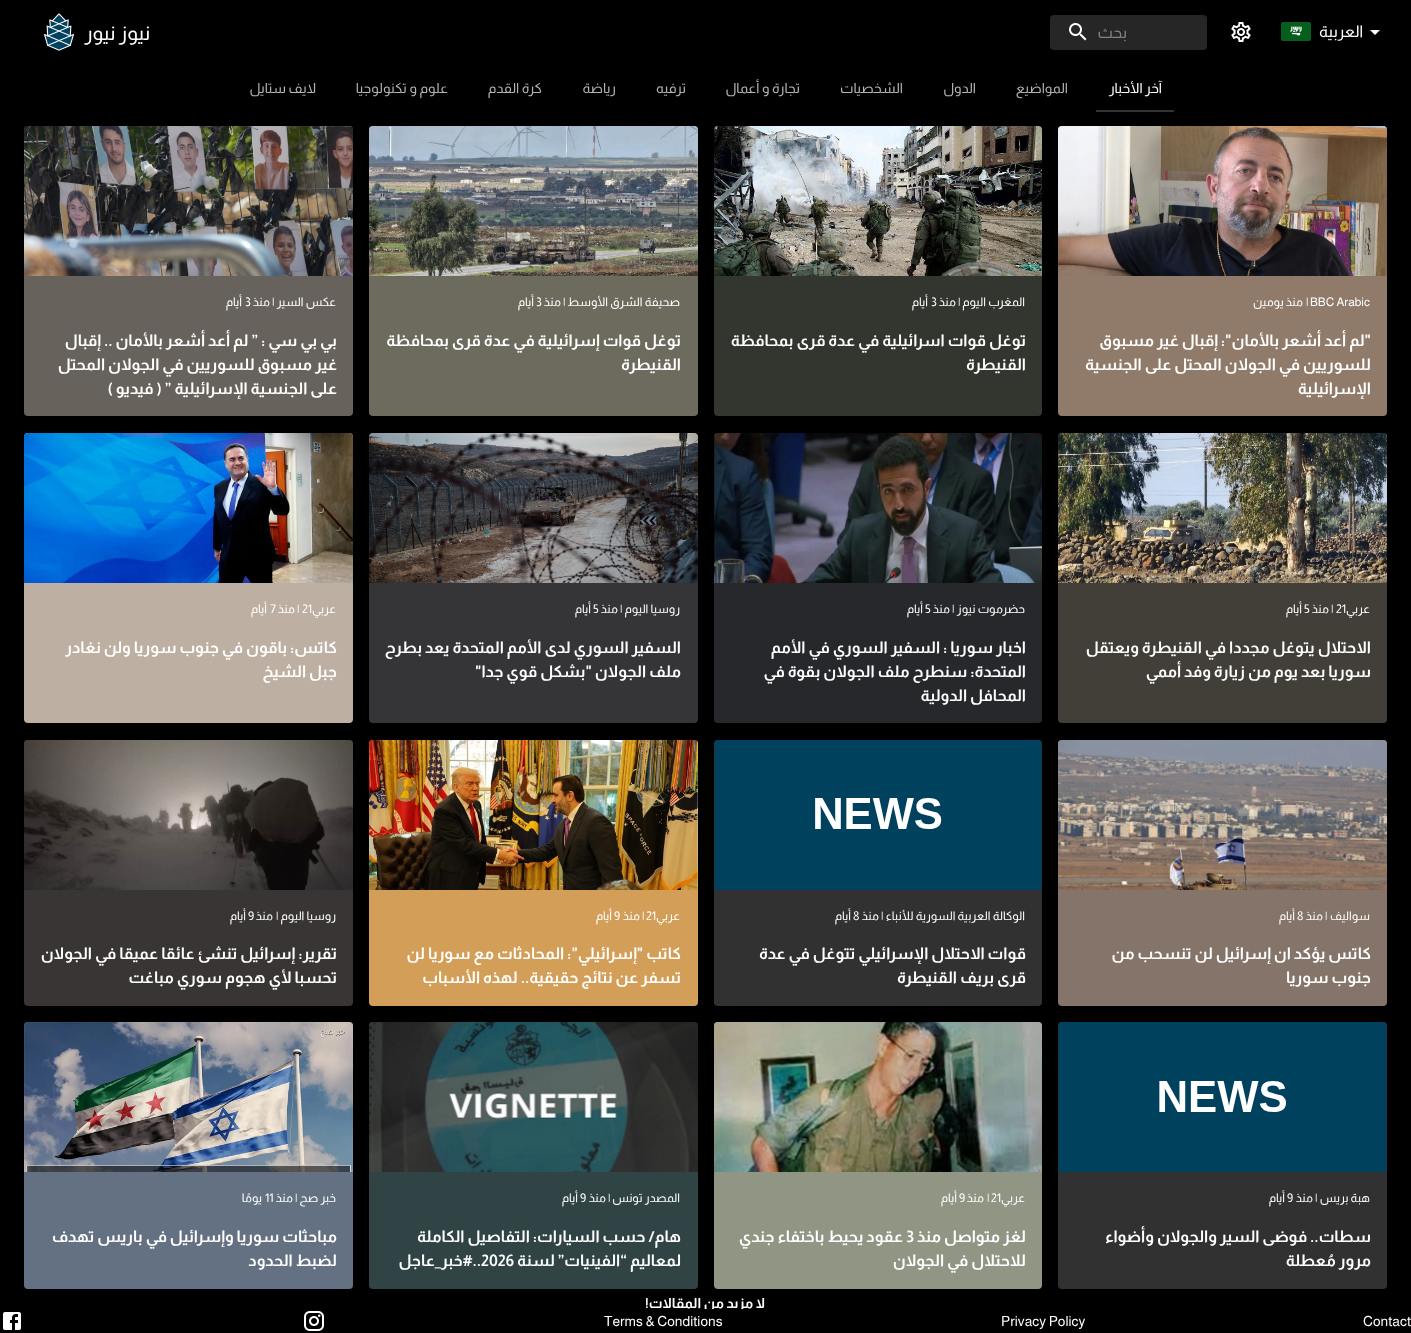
<?xml version="1.0" encoding="UTF-8"?>
<svg xmlns="http://www.w3.org/2000/svg" width="1411" height="1333">
    <rect width="100%" height="100%" fill="#000000"/>
    <path d="M 1370 30 L 1375 35 L 1380 30 Z" fill="#FFFFFF"/>
    <text x="1363" y="37" font-family="Almarai" font-size="16" direction="rtl" fill="#FFFFFF">العربية</text>
    <image x="1281" y="22" width="30" height="19" href="img_01.png"/>
    <image x="1231" y="22" width="20" height="20" href="img_02.png"/>
    <rect x="1050" y="15" width="157" height="35" rx="4" fill="#262626"/>
    <text x="1127" y="38" font-family="Almarai" font-size="16" direction="rtl" fill="#818181">بحث</text>
    <image x="1069" y="23" width="18" height="18" href="img_03.png"/>
    <text x="150" y="40" font-family="Almarai" font-size="20" direction="rtl" fill="#FFFFFF">نيوز نيور</text>
    <image x="44" y="13" width="30" height="38" href="img_04.png"/>
    <text x="1162" y="93" font-family="Almarai" font-size="14" direction="rtl" fill="#FFFFFF">آخر الأخبار</text>
    <text x="1068" y="93" font-family="Almarai" font-size="14" direction="rtl" fill="#B3B3B3">المواضيع</text>
    <text x="976" y="93" font-family="Almarai" font-size="14" direction="rtl" fill="#B3B3B3">الدول</text>
    <text x="903" y="93" font-family="Almarai" font-size="14" direction="rtl" fill="#B3B3B3">الشخصيات</text>
    <text x="800" y="93" font-family="Almarai" font-size="14" direction="rtl" fill="#B3B3B3">تجارة و أعمال</text>
    <text x="686" y="93" font-family="Almarai" font-size="14" direction="rtl" fill="#B3B3B3">ترفيه</text>
    <text x="616" y="93" font-family="Almarai" font-size="14" direction="rtl" fill="#B3B3B3">رياضة</text>
    <text x="542" y="93" font-family="Almarai" font-size="14" direction="rtl" fill="#B3B3B3">كرة القدم</text>
    <text x="448" y="93" font-family="Almarai" font-size="14" direction="rtl" fill="#B3B3B3">علوم و تكنولوجيا</text>
    <text x="316" y="93" font-family="Almarai" font-size="14" direction="rtl" fill="#B3B3B3">لايف ستايل</text>
    <rect x="1096" y="110" width="78" height="2" fill="#333333"/>
    <rect x="1058" y="126" width="329" height="290" rx="4" fill="#907B6A"/>
    <image x="1058" y="126" width="329" height="150" href="img_05.png"/>
    <text x="1310" y="306" font-family="Almarai" font-size="12" fill="#FFFFFF">BBC Arabic</text>
    <text x="1306" y="306" font-family="Almarai" font-size="12" fill="#FFFFFF">|</text>
    <text x="1303" y="306" font-family="Almarai" font-size="12" direction="rtl" fill="#FFFFFF">منذ يومين</text>
    <text font-family="Almarai" font-size="16" font-weight="700" direction="rtl" fill="#FFFFFF">
        <tspan x="1371" y="346">"لم أعد أشعر بالأمان": إقبال غير مسبوق</tspan>
        <tspan x="1371" y="370">للسوريين في الجولان المحتل على الجنسية</tspan>
        <tspan x="1371" y="394">الإسرائيلية</tspan>
    </text>
    <rect x="714" y="126" width="328" height="290" rx="4" fill="#33352F"/>
    <image x="714" y="126" width="328" height="150" href="img_06.png"/>
    <text x="1025" y="306" font-family="Almarai" font-size="12" direction="rtl" fill="#FFFFFF">المغرب اليوم</text>
    <text x="958" y="306" font-family="Almarai" font-size="12" fill="#FFFFFF">|</text>
    <text x="956" y="306" font-family="Almarai" font-size="12" direction="rtl" fill="#FFFFFF">منذ</text>
    <text x="931" y="306" font-family="Almarai" font-size="12" fill="#FFFFFF">3</text>
    <text x="928" y="306" font-family="Almarai" font-size="12" direction="rtl" fill="#FFFFFF">أيام</text>
    <text font-family="Almarai" font-size="16" font-weight="700" direction="rtl" fill="#FFFFFF">
        <tspan x="1026" y="346">توغل قوات اسرائيلية في عدة قرى بمحافظة</tspan>
        <tspan x="1026" y="370">القنيطرة</tspan>
    </text>
    <rect x="369" y="126" width="329" height="290" rx="4" fill="#6D6B5D"/>
    <image x="369" y="126" width="329" height="150" href="img_07.png"/>
    <text x="680" y="306" font-family="Almarai" font-size="12" direction="rtl" fill="#FFFFFF">صحيفة الشرق الأوسط</text>
    <text x="563" y="306" font-family="Almarai" font-size="12" fill="#FFFFFF">|</text>
    <text x="561" y="306" font-family="Almarai" font-size="12" direction="rtl" fill="#FFFFFF">منذ</text>
    <text x="536" y="306" font-family="Almarai" font-size="12" fill="#FFFFFF">3</text>
    <text x="534" y="306" font-family="Almarai" font-size="12" direction="rtl" fill="#FFFFFF">أيام</text>
    <text font-family="Almarai" font-size="16" font-weight="700" direction="rtl" fill="#FFFFFF">
        <tspan x="681" y="346">توغل قوات إسرائيلية في عدة قرى بمحافظة</tspan>
        <tspan x="681" y="370">القنيطرة</tspan>
    </text>
    <rect x="24" y="126" width="329" height="290" rx="4" fill="#68625C"/>
    <image x="24" y="126" width="329" height="150" href="img_08.png"/>
    <text x="336" y="306" font-family="Almarai" font-size="12" direction="rtl" fill="#FFFFFF">عكس السير</text>
    <text x="272" y="306" font-family="Almarai" font-size="12" fill="#FFFFFF">|</text>
    <text x="270" y="306" font-family="Almarai" font-size="12" direction="rtl" fill="#FFFFFF">منذ</text>
    <text x="245" y="306" font-family="Almarai" font-size="12" fill="#FFFFFF">3</text>
    <text x="242" y="306" font-family="Almarai" font-size="12" direction="rtl" fill="#FFFFFF">أيام</text>
    <text font-family="Almarai" font-size="16" font-weight="700" direction="rtl" fill="#FFFFFF">
        <tspan x="337" y="346">بي بي سي : ” لم أعد أشعر بالأمان .. إقبال</tspan>
        <tspan x="337" y="370">غير مسبوق للسوريين في الجولان المحتل</tspan>
        <tspan x="337" y="394">على الجنسية الإسرائيلية ” ( فيديو )</tspan>
    </text>
    <rect x="1058" y="433" width="329" height="290" rx="4" fill="#413F37"/>
    <image x="1058" y="433" width="329" height="150" href="img_09.png"/>
    <text x="1370" y="613" font-family="Almarai" font-size="12" direction="rtl" fill="#FFFFFF">عربي</text>
    <text x="1336" y="613" font-family="Almarai" font-size="12" fill="#FFFFFF">21</text>
    <text x="1331" y="613" font-family="Almarai" font-size="12" fill="#FFFFFF">|</text>
    <text x="1329" y="613" font-family="Almarai" font-size="12" direction="rtl" fill="#FFFFFF">منذ</text>
    <text x="1304" y="613" font-family="Almarai" font-size="12" fill="#FFFFFF">5</text>
    <text x="1302" y="613" font-family="Almarai" font-size="12" direction="rtl" fill="#FFFFFF">أيام</text>
    <text font-family="Almarai" font-size="16" font-weight="700" direction="rtl" fill="#FFFFFF">
        <tspan x="1371" y="653">الاحتلال يتوغل مجددا في القنيطرة ويعتقل</tspan>
        <tspan x="1371" y="677">سوريا بعد يوم من زيارة وفد أممي</tspan>
    </text>
    <rect x="714" y="433" width="328" height="290" rx="4" fill="#26282B"/>
    <image x="714" y="433" width="328" height="150" href="img_10.png"/>
    <text x="1025" y="613" font-family="Almarai" font-size="12" direction="rtl" fill="#FFFFFF">حضرموت نيوز</text>
    <text x="952" y="613" font-family="Almarai" font-size="12" fill="#FFFFFF">|</text>
    <text x="950" y="613" font-family="Almarai" font-size="12" direction="rtl" fill="#FFFFFF">منذ</text>
    <text x="925" y="613" font-family="Almarai" font-size="12" fill="#FFFFFF">5</text>
    <text x="923" y="613" font-family="Almarai" font-size="12" direction="rtl" fill="#FFFFFF">أيام</text>
    <text font-family="Almarai" font-size="16" font-weight="700" direction="rtl" fill="#FFFFFF">
        <tspan x="1026" y="653">اخبار سوريا : السفير السوري في الأمم</tspan>
        <tspan x="1026" y="677">المتحدة: سنطرح ملف الجولان بقوة في</tspan>
        <tspan x="1026" y="701">المحافل الدولية</tspan>
    </text>
    <rect x="369" y="433" width="329" height="290" rx="4" fill="#353436"/>
    <image x="369" y="433" width="329" height="150" href="img_11.png"/>
    <text x="680" y="613" font-family="Almarai" font-size="12" direction="rtl" fill="#FFFFFF">روسيا اليوم</text>
    <text x="620" y="613" font-family="Almarai" font-size="12" fill="#FFFFFF">|</text>
    <text x="618" y="613" font-family="Almarai" font-size="12" direction="rtl" fill="#FFFFFF">منذ</text>
    <text x="593" y="613" font-family="Almarai" font-size="12" fill="#FFFFFF">5</text>
    <text x="591" y="613" font-family="Almarai" font-size="12" direction="rtl" fill="#FFFFFF">أيام</text>
    <text font-family="Almarai" font-size="16" font-weight="700" direction="rtl" fill="#FFFFFF">
        <tspan x="681" y="653">السفير السوري لدى الأمم المتحدة يعد بطرح</tspan>
        <tspan x="681" y="677">ملف الجولان "بشكل قوي جدا"</tspan>
    </text>
    <rect x="24" y="433" width="329" height="290" rx="4" fill="#BEAFA3"/>
    <image x="24" y="433" width="329" height="150" href="img_12.png"/>
    <text x="336" y="613" font-family="Almarai" font-size="12" direction="rtl" fill="#FFFFFF">عربي</text>
    <text x="302" y="613" font-family="Almarai" font-size="12" fill="#FFFFFF">21</text>
    <text x="297" y="613" font-family="Almarai" font-size="12" fill="#FFFFFF">|</text>
    <text x="295" y="613" font-family="Almarai" font-size="12" direction="rtl" fill="#FFFFFF">منذ</text>
    <text x="270" y="613" font-family="Almarai" font-size="12" fill="#FFFFFF">7</text>
    <text x="267" y="613" font-family="Almarai" font-size="12" direction="rtl" fill="#FFFFFF">أيام</text>
    <text font-family="Almarai" font-size="16" font-weight="700" direction="rtl" fill="#FFFFFF">
        <tspan x="337" y="653">كاتس: باقون في جنوب سوريا ولن نغادر</tspan>
        <tspan x="337" y="677">جبل الشيخ</tspan>
    </text>
    <rect x="1058" y="740" width="329" height="266" rx="4" fill="#847469"/>
    <image x="1058" y="740" width="329" height="150" href="img_13.png"/>
    <text x="1370" y="920" font-family="Almarai" font-size="12" direction="rtl" fill="#FFFFFF">سواليف</text>
    <text x="1325" y="920" font-family="Almarai" font-size="12" fill="#FFFFFF">|</text>
    <text x="1323" y="920" font-family="Almarai" font-size="12" direction="rtl" fill="#FFFFFF">منذ</text>
    <text x="1297" y="920" font-family="Almarai" font-size="12" fill="#FFFFFF">8</text>
    <text x="1295" y="920" font-family="Almarai" font-size="12" direction="rtl" fill="#FFFFFF">أيام</text>
    <text font-family="Almarai" font-size="16" font-weight="700" direction="rtl" fill="#FFFFFF">
        <tspan x="1371" y="959">كاتس يؤكد ان إسرائيل لن تنسحب من</tspan>
        <tspan x="1371" y="983">جنوب سوريا</tspan>
    </text>
    <rect x="714" y="740" width="328" height="266" rx="4" fill="#313131"/>
    <image x="714" y="740" width="328" height="150" href="img_14.png"/>
    <text x="1025" y="920" font-family="Almarai" font-size="12" direction="rtl" fill="#FFFFFF">الوكالة العربية السورية للأنباء</text>
    <text x="881" y="920" font-family="Almarai" font-size="12" fill="#FFFFFF">|</text>
    <text x="879" y="920" font-family="Almarai" font-size="12" direction="rtl" fill="#FFFFFF">منذ</text>
    <text x="853" y="920" font-family="Almarai" font-size="12" fill="#FFFFFF">8</text>
    <text x="851" y="920" font-family="Almarai" font-size="12" direction="rtl" fill="#FFFFFF">أيام</text>
    <text font-family="Almarai" font-size="16" font-weight="700" direction="rtl" fill="#FFFFFF">
        <tspan x="1026" y="959">قوات الاحتلال الإسرائيلي تتوغل في عدة</tspan>
        <tspan x="1026" y="983">قرى بريف القنيطرة</tspan>
    </text>
    <rect x="369" y="740" width="329" height="266" rx="4" fill="#D39F58"/>
    <image x="369" y="740" width="329" height="150" href="img_15.png"/>
    <text x="680" y="920" font-family="Almarai" font-size="12" direction="rtl" fill="#FFFFFF">عربي</text>
    <text x="646" y="920" font-family="Almarai" font-size="12" fill="#FFFFFF">21</text>
    <text x="642" y="920" font-family="Almarai" font-size="12" fill="#FFFFFF">|</text>
    <text x="640" y="920" font-family="Almarai" font-size="12" direction="rtl" fill="#FFFFFF">منذ</text>
    <text x="614" y="920" font-family="Almarai" font-size="12" fill="#FFFFFF">9</text>
    <text x="612" y="920" font-family="Almarai" font-size="12" direction="rtl" fill="#FFFFFF">أيام</text>
    <text font-family="Almarai" font-size="16" font-weight="700" direction="rtl" fill="#FFFFFF">
        <tspan x="681" y="959">كاتب "إسرائيلي": المحادثات مع سوريا لن</tspan>
        <tspan x="681" y="983">تسفر عن نتائج حقيقية.. لهذه الأسباب</tspan>
    </text>
    <rect x="24" y="740" width="329" height="266" rx="4" fill="#383534"/>
    <image x="24" y="740" width="329" height="150" href="img_16.png"/>
    <text x="336" y="920" font-family="Almarai" font-size="12" direction="rtl" fill="#FFFFFF">روسيا اليوم</text>
    <text x="276" y="920" font-family="Almarai" font-size="12" fill="#FFFFFF">|</text>
    <text x="273" y="920" font-family="Almarai" font-size="12" direction="rtl" fill="#FFFFFF">منذ</text>
    <text x="248" y="920" font-family="Almarai" font-size="12" fill="#FFFFFF">9</text>
    <text x="246" y="920" font-family="Almarai" font-size="12" direction="rtl" fill="#FFFFFF">أيام</text>
    <text font-family="Almarai" font-size="16" font-weight="700" direction="rtl" fill="#FFFFFF">
        <tspan x="337" y="959">تقرير: إسرائيل تنشئ عائقا عميقا في الجولان</tspan>
        <tspan x="337" y="983">تحسبا لأي هجوم سوري مباغت</tspan>
    </text>
    <rect x="1058" y="1022" width="329" height="267" rx="4" fill="#313131"/>
    <image x="1058" y="1022" width="329" height="150" href="img_17.png"/>
    <text x="1370" y="1202" font-family="Almarai" font-size="12" direction="rtl" fill="#FFFFFF">هبة بريس</text>
    <text x="1315" y="1202" font-family="Almarai" font-size="12" fill="#FFFFFF">|</text>
    <text x="1313" y="1202" font-family="Almarai" font-size="12" direction="rtl" fill="#FFFFFF">منذ</text>
    <text x="1287" y="1202" font-family="Almarai" font-size="12" fill="#FFFFFF">9</text>
    <text x="1285" y="1202" font-family="Almarai" font-size="12" direction="rtl" fill="#FFFFFF">أيام</text>
    <text font-family="Almarai" font-size="16" font-weight="700" direction="rtl" fill="#FFFFFF">
        <tspan x="1371" y="1242">سطات.. فوضى السير والجولان وأضواء</tspan>
        <tspan x="1371" y="1266">مرور مُعطلة</tspan>
    </text>
    <rect x="714" y="1022" width="328" height="267" rx="4" fill="#919584"/>
    <image x="714" y="1022" width="328" height="150" href="img_18.png"/>
    <text x="1025" y="1202" font-family="Almarai" font-size="12" direction="rtl" fill="#FFFFFF">عربي</text>
    <text x="991" y="1202" font-family="Almarai" font-size="12" fill="#FFFFFF">21</text>
    <text x="987" y="1202" font-family="Almarai" font-size="12" fill="#FFFFFF">|</text>
    <text x="984" y="1202" font-family="Almarai" font-size="12" direction="rtl" fill="#FFFFFF">منذ</text>
    <text x="959" y="1202" font-family="Almarai" font-size="12" fill="#FFFFFF">9</text>
    <text x="957" y="1202" font-family="Almarai" font-size="12" direction="rtl" fill="#FFFFFF">أيام</text>
    <text x="1026" y="1242" font-family="Almarai" font-size="16" font-weight="700" direction="rtl" fill="#FFFFFF">لغز متواصل منذ</text>
    <text x="906" y="1242" font-family="Almarai" font-size="16" font-weight="700" fill="#FFFFFF">3</text>
    <text x="903" y="1242" font-family="Almarai" font-size="16" font-weight="700" direction="rtl" fill="#FFFFFF">عقود يحيط باختفاء جندي</text>
    <text x="1026" y="1266" font-family="Almarai" font-size="16" font-weight="700" direction="rtl" fill="#FFFFFF">للاحتلال في الجولان</text>
    <rect x="369" y="1022" width="329" height="267" rx="4" fill="#304446"/>
    <image x="369" y="1022" width="329" height="150" href="img_19.png"/>
    <text x="680" y="1202" font-family="Almarai" font-size="12" direction="rtl" fill="#FFFFFF">المصدر تونس</text>
    <text x="608" y="1202" font-family="Almarai" font-size="12" fill="#FFFFFF">|</text>
    <text x="606" y="1202" font-family="Almarai" font-size="12" direction="rtl" fill="#FFFFFF">منذ</text>
    <text x="580" y="1202" font-family="Almarai" font-size="12" fill="#FFFFFF">9</text>
    <text x="578" y="1202" font-family="Almarai" font-size="12" direction="rtl" fill="#FFFFFF">أيام</text>
    <text font-family="Almarai" font-size="16" font-weight="700" direction="rtl" fill="#FFFFFF">
        <tspan x="681" y="1242">هام/ حسب السيارات: التفاصيل الكاملة</tspan>
        <tspan x="681" y="1266">لمعاليم “الفينيات” لسنة</tspan>
    </text>
    <text x="481" y="1266" font-family="Almarai" font-size="16" font-weight="700" direction="rtl" fill="#FFFFFF">..#خبر_عاجل</text>
    <text x="481" y="1266" font-family="Almarai" font-size="16" font-weight="700" fill="#FFFFFF">2026</text>
    <rect x="24" y="1022" width="329" height="267" rx="4" fill="#637183"/>
    <image x="24" y="1022" width="329" height="150" href="img_20.png"/>
    <text x="336" y="1202" font-family="Almarai" font-size="12" direction="rtl" fill="#FFFFFF">خبر صح</text>
    <text x="295" y="1202" font-family="Almarai" font-size="12" fill="#FFFFFF">|</text>
    <text x="293" y="1202" font-family="Almarai" font-size="12" direction="rtl" fill="#FFFFFF">منذ</text>
    <text x="265" y="1202" font-family="Almarai" font-size="12" fill="#FFFFFF">11</text>
    <text x="262" y="1202" font-family="Almarai" font-size="12" direction="rtl" fill="#FFFFFF">يومًا</text>
    <text font-family="Almarai" font-size="16" font-weight="700" direction="rtl" fill="#FFFFFF">
        <tspan x="337" y="1242">مباحثات سوريا وإسرائيل في باريس تهدف</tspan>
        <tspan x="337" y="1266">لضبط الحدود</tspan>
    </text>
    <text x="765" y="1308" font-family="Almarai" font-size="14" font-weight="700" direction="rtl" fill="#FFFFFF">لا مزيد من المقالات!</text>
    <rect x="705" y="1309" width="39" height="3" fill="#000000"/>
    <text x="1363" y="1326" font-family="Almarai" font-size="14" fill="#FFFFFF">Contact</text>
    <text x="1001" y="1326" font-family="Almarai" font-size="14" fill="#FFFFFF">Privacy Policy</text>
    <text x="604" y="1326" font-family="Almarai" font-size="14" fill="#FFFFFF">Terms &amp; Conditions</text>
    <image x="304" y="1311" width="20" height="20" href="img_21.png"/>
    <image x="3" y="1312" width="18" height="18" href="img_22.png"/>
</svg>
